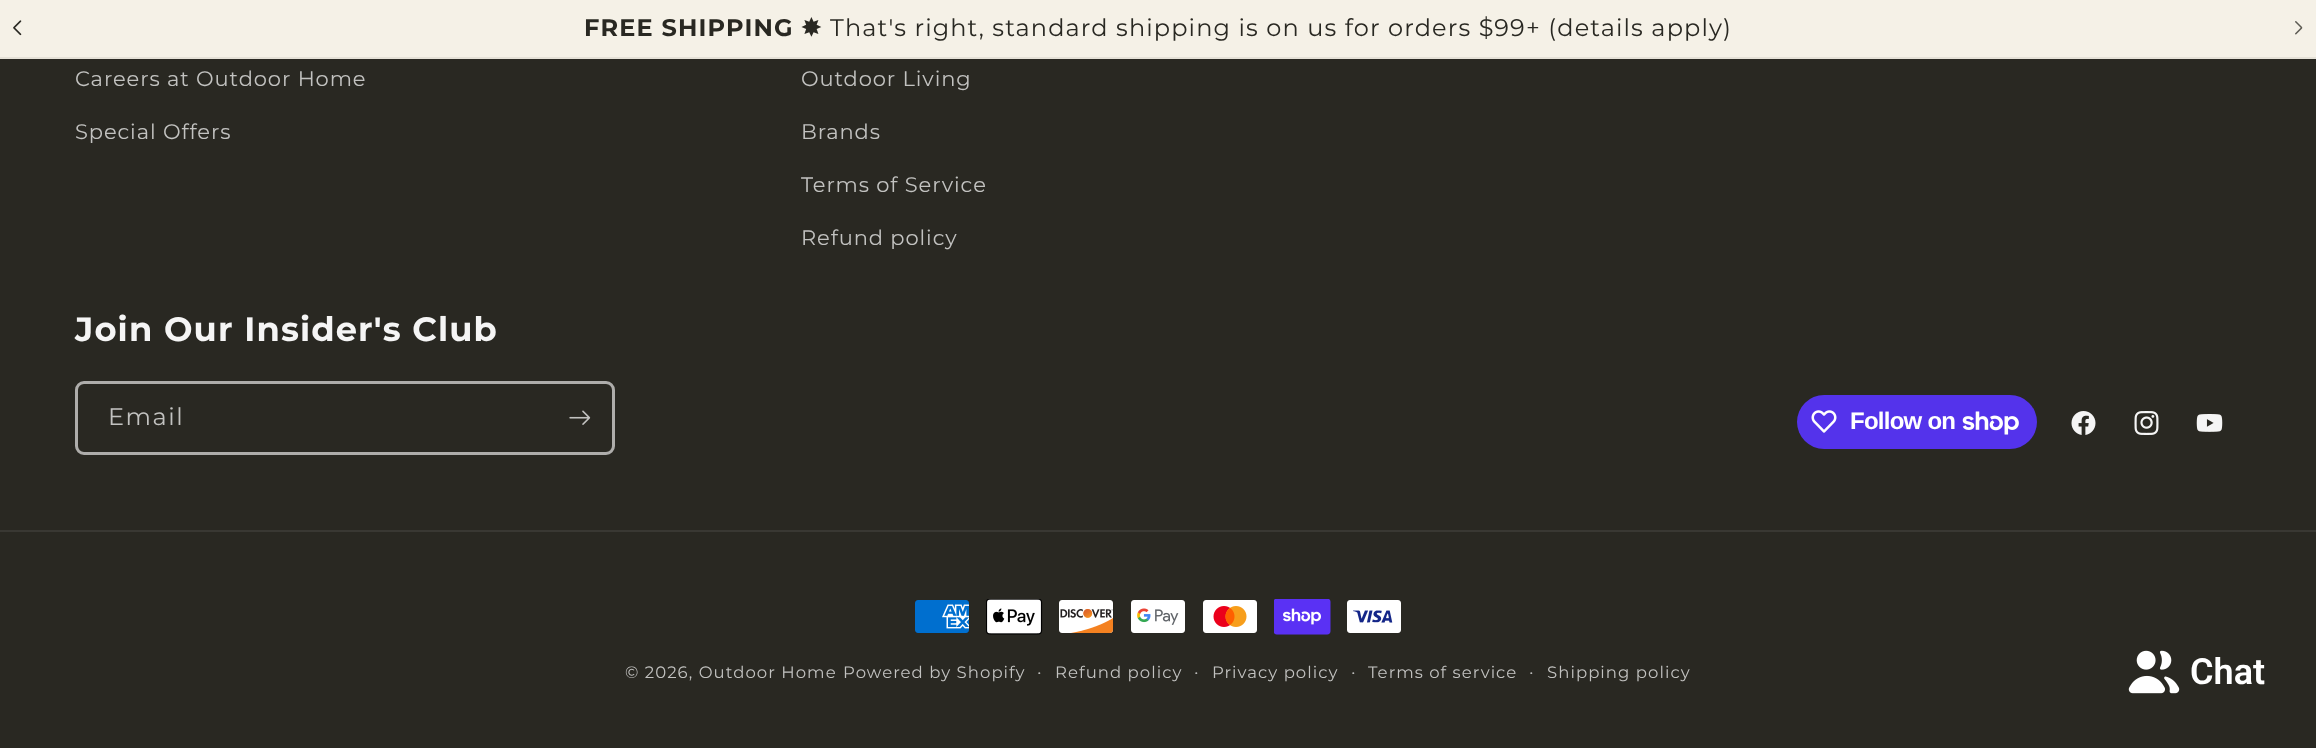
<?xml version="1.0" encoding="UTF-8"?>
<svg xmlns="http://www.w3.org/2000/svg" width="2316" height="748">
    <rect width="100%" height="100%" fill="#292822"/>
    <rect x="0" y="0" width="2316" height="57" fill="#F5F1E7"/>
    <rect x="0" y="57" width="2316" height="2" fill="#E5E1D7"/>
    <image x="13" y="20" width="9" height="16" href="img_01.png"/>
    <text x="584" y="36" font-family="Montserrat" font-size="24" font-weight="700" letter-spacing="1.12" fill="#292822">FREE SHIPPING</text>
    <text x="801" y="36" font-family="DejaVu Sans" font-size="24" font-weight="700" letter-spacing="1.12" fill="#292822">✸</text>
    <text x="830" y="36" font-family="Montserrat" font-size="24" letter-spacing="1.12" fill="#292822">That's right, standard shipping is on us for orders $99+ (details apply)</text>
    <image x="2295" y="21" width="8" height="14" href="img_02.png"/>
    <text x="75" y="86" font-family="Montserrat" font-size="21" letter-spacing="0.9" fill="#C2C2C0">Careers at Outdoor Home</text>
    <text x="75" y="139" font-family="Montserrat" font-size="21" letter-spacing="0.9" fill="#C2C2C0">Special Offers</text>
    <text x="801" y="86" font-family="Montserrat" font-size="21" letter-spacing="0.9" fill="#C2C2C0">Outdoor Living</text>
    <text x="801" y="139" font-family="Montserrat" font-size="21" letter-spacing="0.9" fill="#C2C2C0">Brands</text>
    <text x="801" y="192" font-family="Montserrat" font-size="21" letter-spacing="0.9" fill="#C2C2C0">Terms of Service</text>
    <text x="801" y="245" font-family="Montserrat" font-size="21" letter-spacing="0.9" fill="#C2C2C0">Refund policy</text>
    <text x="75" y="341" font-family="Montserrat" font-size="33.75" font-weight="700" letter-spacing="1.12" fill="#F5F5F5">Join Our Insider's Club</text>
    <rect x="76.5" y="382.5" width="537" height="71" rx="7.5" fill="none" stroke="#AEADAB" stroke-width="3"/>
    <text x="108" y="425" font-family="Montserrat" font-size="24" letter-spacing="1.5" fill="#C2C2C0">Email</text>
    <image x="569" y="410" width="22" height="15" href="img_03.png"/>
    <rect x="1797" y="395" width="240" height="54" rx="27" fill="#5433EB"/>
    <image x="1811" y="410" width="26" height="23" href="img_04.png"/>
    <text x="1850" y="429" font-family="Liberation Sans" font-size="24" font-weight="700" letter-spacing="-0.75" fill="#FFFFFF">Follow on</text>
    <image x="1962" y="411" width="57" height="24" href="img_05.png"/>
    <image x="2071" y="411" width="25" height="24" href="img_06.png"/>
    <image x="2134" y="411" width="25" height="24" href="img_07.png"/>
    <image x="2196" y="414" width="27" height="18" href="img_08.png"/>
    <rect x="0" y="530" width="2316" height="2" fill="#393833"/>
    <image x="915" y="600" width="54" height="33" href="img_09.png"/>
    <image x="986" y="599" width="57" height="36" href="img_10.png"/>
    <image x="1059" y="600" width="55" height="33" href="img_11.png"/>
    <image x="1131" y="600" width="54" height="33" href="img_12.png"/>
    <image x="1203" y="600" width="54" height="33" href="img_13.png"/>
    <image x="1274" y="599" width="57" height="36" href="img_14.png"/>
    <image x="1347" y="600" width="54" height="33" href="img_15.png"/>
    <text x="625" y="678" font-family="Montserrat" font-size="16.5" letter-spacing="1.05" fill="#C2C2C0">© 2026, Outdoor Home</text>
    <text x="843" y="678" font-family="Montserrat" font-size="16.5" letter-spacing="1.05" fill="#C2C2C0">Powered by Shopify</text>
    <text x="1037" y="678" font-family="Montserrat" font-size="18" letter-spacing="1.05" fill="#C2C2C0">·</text>
    <text x="1055" y="678" font-family="Montserrat" font-size="16.5" letter-spacing="1.05" fill="#C2C2C0">Refund policy</text>
    <text x="1194" y="678" font-family="Montserrat" font-size="18" letter-spacing="1.05" fill="#C2C2C0">·</text>
    <text x="1212" y="678" font-family="Montserrat" font-size="16.5" letter-spacing="1.05" fill="#C2C2C0">Privacy policy</text>
    <text x="1351" y="678" font-family="Montserrat" font-size="18" letter-spacing="1.05" fill="#C2C2C0">·</text>
    <text x="1368" y="678" font-family="Montserrat" font-size="16.5" letter-spacing="1.05" fill="#C2C2C0">Terms of service</text>
    <text x="1529" y="678" font-family="Montserrat" font-size="18" letter-spacing="1.05" fill="#C2C2C0">·</text>
    <text x="1547" y="678" font-family="Montserrat" font-size="16.5" letter-spacing="1.05" fill="#C2C2C0">Shipping policy</text>
    <image x="2128" y="650" width="52" height="44" href="img_16.png"/>
    <text x="2190" y="684" font-family="Roboto" font-size="36" font-weight="600" fill="#FFFFFF">Chat</text>
</svg>
